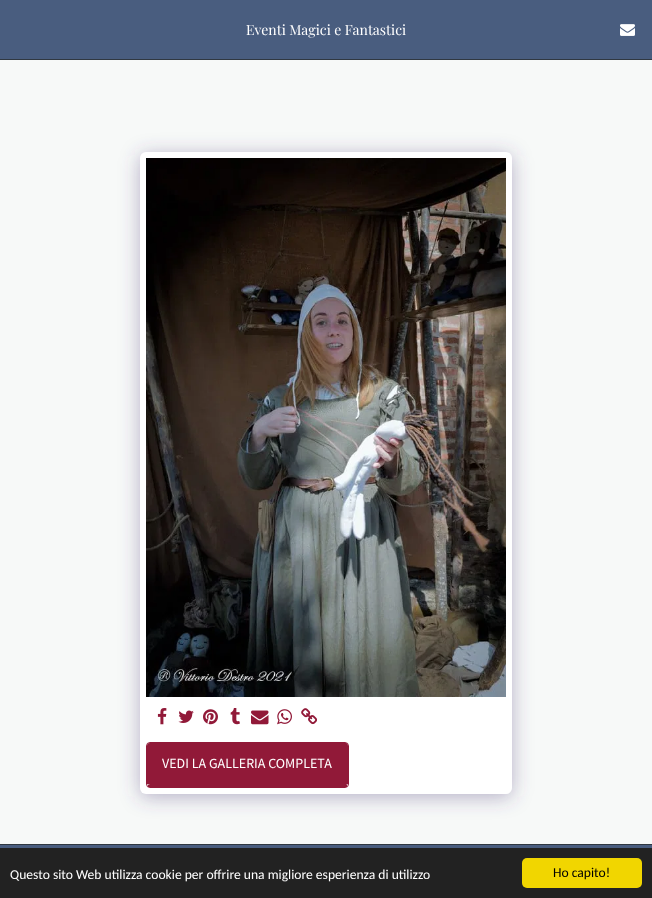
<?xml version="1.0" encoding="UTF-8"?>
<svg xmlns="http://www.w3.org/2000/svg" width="652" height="898">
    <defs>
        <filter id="blur1" x="-50%" y="-200%" width="200%" height="500%"><feGaussianBlur stdDeviation="10"/></filter>
    </defs>
    <rect width="100%" height="100%" fill="#303841"/>
    <rect x="0" y="0" width="652" height="59" fill="#495D7F"/>
    <text x="246" y="35" font-family="Playfair Display" font-size="14" fill="#FFFFFF">Eventi Magici e Fantastici</text>
    <image x="620" y="24" width="15" height="12" href="img_01.png"/>
    <rect x="0" y="60" width="652" height="784" fill="#F7F9F8"/>
    <rect x="140" y="155" width="372" height="642" rx="6" fill="#4D3F7A" fill-opacity="0.4" filter="url(#blur1)"/>
    <rect x="140" y="152" width="372" height="642" rx="6" fill="#FFFFFF"/>
    <image x="146" y="158" width="360" height="539" href="img_02.png"/>
    <image x="157" y="708" width="10" height="17" href="img_03.png"/>
    <image x="178" y="710" width="16" height="13" href="img_04.png"/>
    <image x="203" y="709" width="15" height="16" href="img_05.png"/>
    <image x="230" y="708" width="10" height="17" href="img_06.png"/>
    <image x="251" y="710" width="18" height="15" href="img_07.png"/>
    <image x="277" y="709" width="15" height="16" href="img_08.png"/>
    <image x="301" y="708" width="16" height="17" href="img_09.png"/>
    <path d="M 150 743 H 346 C 347 743 348 744 348 746 V 784 L 346 785 H 150 L 147 784 V 746 C 147 744 148 743 150 743 Z" fill="#911938"/>
    <rect x="146.5" y="742.5" width="202" height="45" rx="3.5" fill="none" stroke="#911938"/>
    <rect x="148" y="785" width="199" height="2" fill="#911938"/>
    <text x="162" y="768" font-family="Source Sans Pro" font-size="14" fill="#FFFFFF">VEDI LA GALLERIA COMPLETA</text>
    <rect x="0" y="845" width="652" height="3" fill="#495D7F"/>
    <rect x="0" y="848" width="652" height="50" fill="#222222"/>
    <text x="10" y="879" font-family="Carlito" font-size="13.6" fill="#FFFFFF">Questo sito Web utilizza cookie per offrire una migliore esperienza di utilizzo</text>
    <rect x="522" y="858" width="120" height="30" rx="5" fill="#F1D600"/>
    <text x="553" y="877" font-family="Carlito" font-size="13.6" fill="#000000">Ho capito!</text>
</svg>
